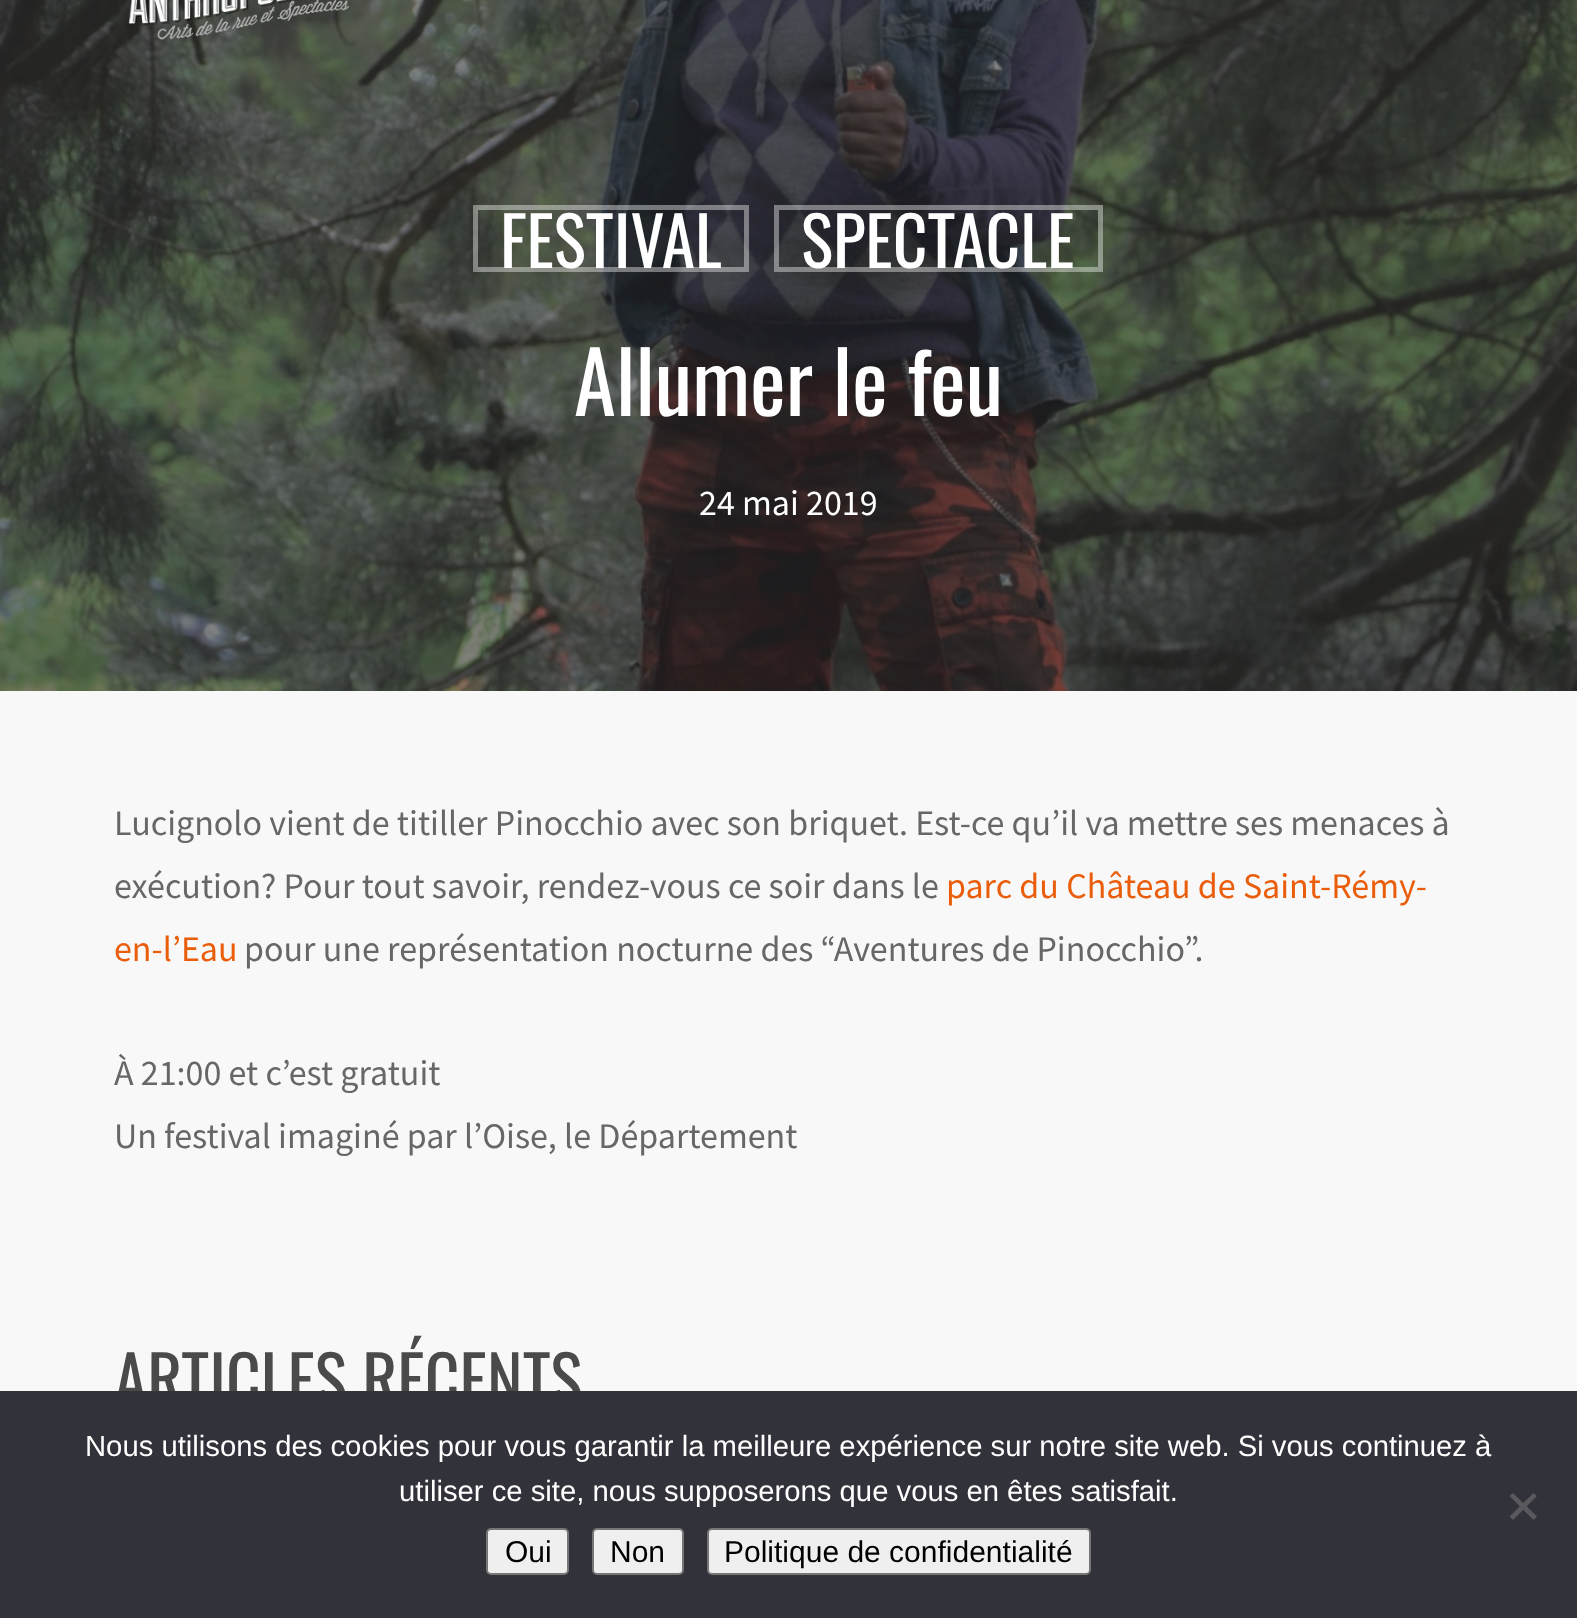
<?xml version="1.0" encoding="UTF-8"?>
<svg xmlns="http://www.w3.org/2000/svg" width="1577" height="1618">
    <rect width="100%" height="100%" fill="#FFFFFF"/>
    <image x="0" y="0" width="1577" height="691" href="img_02.png"/>
    <image x="128" y="0" width="222" height="40" href="img_01.png"/>
    <rect x="475.5" y="207.5" width="271" height="62" fill="none" stroke="#FFFFFF" stroke-opacity="0.4" stroke-width="5"/>
    <text x="500" y="268" font-family="Oswald" font-size="67.5" fill="#FFFFFF">FESTIVAL</text>
    <rect x="776.5" y="207.5" width="324" height="62" fill="none" stroke="#FFFFFF" stroke-opacity="0.4" stroke-width="5"/>
    <text x="801" y="268" font-family="Oswald" font-size="67.5" fill="#FFFFFF">SPECTACLE</text>
    <text x="574" y="416" font-family="Oswald" font-size="85" fill="#FFFFFF">Allumer le feu</text>
    <text x="699" y="515" font-family="Source Sans Pro" font-size="36" fill="#FFFFFF">24 mai 2019</text>
    <rect x="0" y="691" width="1577" height="700" fill="#F8F8F8"/>
    <text font-family="Source Sans Pro" font-size="36" fill="#676767">
        <tspan x="114" y="835">Lucignolo vient de titiller Pinocchio avec son briquet. Est-ce qu’il va mettre ses menaces à</tspan>
        <tspan x="114" y="898">exécution? Pour tout savoir, rendez-vous ce soir dans le</tspan>
    </text>
    <text x="946" y="898" font-family="Source Sans Pro" font-size="36" fill="#EA5D0A">parc du Château de Saint-Rémy-</text>
    <text x="114" y="961" font-family="Source Sans Pro" font-size="36" fill="#EA5D0A">en-l’Eau</text>
    <text x="244" y="961" font-family="Source Sans Pro" font-size="36" fill="#676767">pour une représentation nocturne des “Aventures de Pinocchio”.</text>
    <text font-family="Source Sans Pro" font-size="36" fill="#676767">
        <tspan x="114" y="1085">À 21:00 et c’est gratuit</tspan>
        <tspan x="114" y="1148">Un festival imaginé par l’Oise, le Département</tspan>
    </text>
    <text x="114" y="1407" font-family="Oswald" font-size="67.5" fill="#4A4A4A">ARTICLES RÉCENTS</text>
    <rect x="0" y="1391" width="1577" height="227" fill="#32323A"/>
    <text x="85" y="1456" font-family="Liberation Sans" font-size="29.25" fill="#FFFFFF">Nous utilisons des cookies pour vous garantir la meilleure expérience sur notre site web. Si vous continuez à</text>
    <text x="399" y="1501" font-family="Liberation Sans" font-size="29.25" fill="#FFFFFF">utiliser ce site, nous supposerons que vous en êtes satisfait.</text>
    <path d="M 1533.5 1493 L 1537 1496 L 1513 1520 L 1509.5 1516.5 Z" fill="#59595D"/>
    <path d="M 1509.5 1496 L 1513 1493 L 1537 1516.5 L 1533.5 1520 Z" fill="#59595D"/>
    <rect x="487" y="1529" width="81" height="45" rx="4" fill="#EFEFEF" stroke="#767676" stroke-width="2"/>
    <text x="505" y="1562" font-family="Liberation Sans" font-size="30" fill="#000000">Oui</text>
    <rect x="593" y="1529" width="90" height="45" rx="4" fill="#EFEFEF" stroke="#767676" stroke-width="2"/>
    <text x="610" y="1562" font-family="Liberation Sans" font-size="30" fill="#000000">Non</text>
    <rect x="708" y="1529" width="382" height="45" rx="4" fill="#EFEFEF" stroke="#767676" stroke-width="2"/>
    <text x="724" y="1562" font-family="Liberation Sans" font-size="30" fill="#000000">Politique de confidentialité</text>
</svg>
